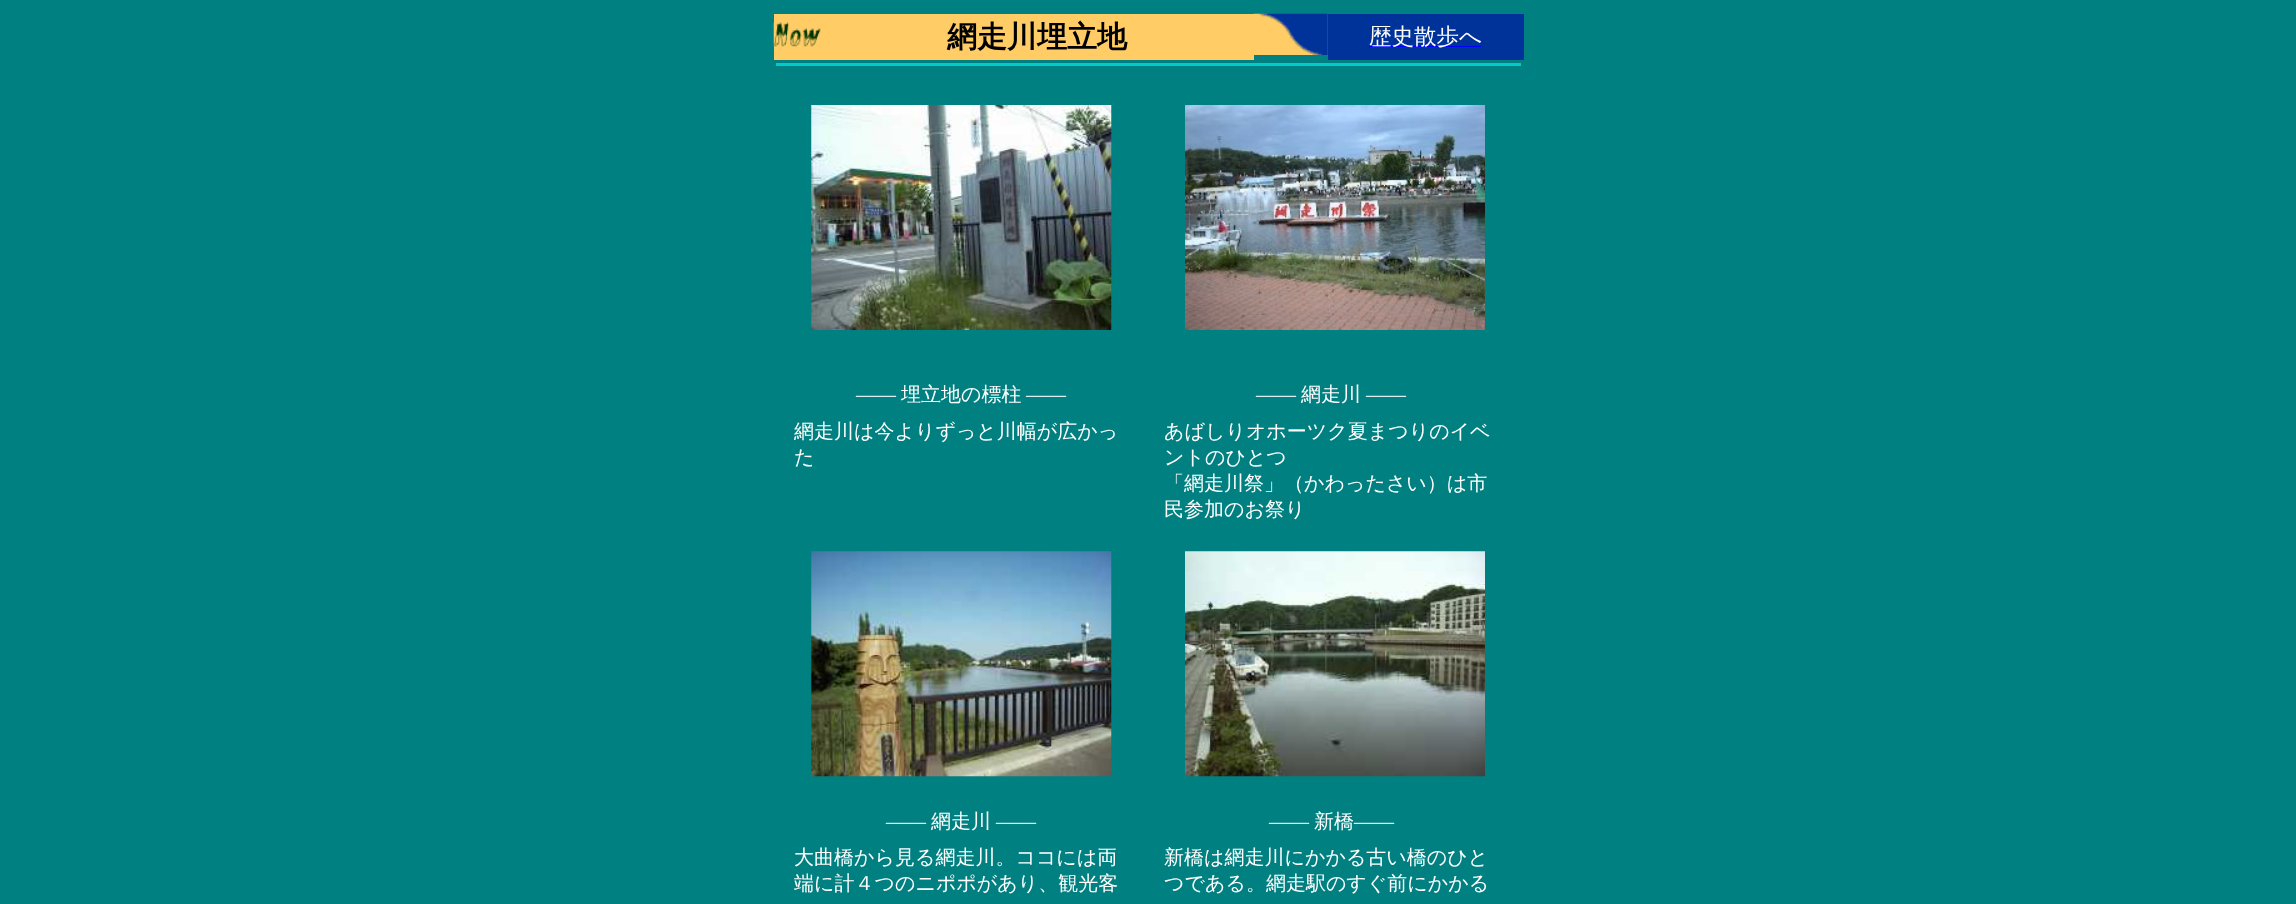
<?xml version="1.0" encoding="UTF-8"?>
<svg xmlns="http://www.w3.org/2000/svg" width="2296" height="904">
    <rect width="100%" height="100%" fill="#008080"/>
    <rect x="774" y="14" width="480" height="46" fill="#FFCC66"/>
    <image x="773" y="22" width="48" height="25" href="img_01.png"/>
    <image x="1253" y="13" width="75" height="42" href="img_02.png"/>
    <text x="947" y="47" font-family="WenQuanYi Zen Hei" font-size="30" font-weight="700" fill="#000000">網走川埋立地</text>
    <rect x="1328" y="14" width="196" height="46" fill="#003399"/>
    <rect x="1369" y="46" width="112" height="1" fill="#0000FF"/>
    <text x="1369" y="44" font-family="WenQuanYi Zen Hei" font-size="22.5" font-weight="500" fill="#FFFFFF">歴史散歩へ</text>
    <rect x="776" y="63" width="745" height="3" fill="#00CCCC"/>
    <image x="811" y="105" width="301" height="225" href="img_03.png"/>
    <image x="1185" y="105" width="300" height="225" href="img_04.png"/>
    <text x="856" y="401" font-family="Liberation Serif" font-size="20" fill="#FFFFFF">――</text>
    <text x="901" y="401" font-family="WenQuanYi Zen Hei" font-size="20" font-weight="500" fill="#FFFFFF">埋立地の標柱</text>
    <text x="1026" y="401" font-family="Liberation Serif" font-size="20" fill="#FFFFFF">――</text>
    <text font-family="WenQuanYi Zen Hei" font-size="20" font-weight="500" fill="#FFFFFF">
        <tspan x="794" y="438">網走川は今よりずっと川幅が広かっ</tspan>
        <tspan x="794" y="464">た</tspan>
    </text>
    <text x="1256" y="401" font-family="Liberation Serif" font-size="20" fill="#FFFFFF">――</text>
    <text x="1301" y="401" font-family="WenQuanYi Zen Hei" font-size="20" font-weight="500" fill="#FFFFFF">網走川</text>
    <text x="1366" y="401" font-family="Liberation Serif" font-size="20" fill="#FFFFFF">――</text>
    <text font-family="WenQuanYi Zen Hei" font-size="20" font-weight="500" fill="#FFFFFF">
        <tspan x="1164" y="438">あばしりオホーツク夏まつりのイベ</tspan>
        <tspan x="1164" y="464">ントのひとつ</tspan>
        <tspan x="1164" y="490">「網走川祭」（かわったさい）は市</tspan>
        <tspan x="1164" y="516">民参加のお祭り</tspan>
    </text>
    <image x="811" y="551" width="301" height="226" href="img_05.png"/>
    <image x="1185" y="551" width="300" height="226" href="img_06.png"/>
    <text x="886" y="828" font-family="Liberation Serif" font-size="20" fill="#FFFFFF">――</text>
    <text x="931" y="828" font-family="WenQuanYi Zen Hei" font-size="20" font-weight="500" fill="#FFFFFF">網走川</text>
    <text x="996" y="828" font-family="Liberation Serif" font-size="20" fill="#FFFFFF">――</text>
    <text font-family="WenQuanYi Zen Hei" font-size="20" font-weight="500" fill="#FFFFFF">
        <tspan x="794" y="864">大曲橋から見る網走川。ココには両</tspan>
        <tspan x="794" y="890">端に計４つのニポポがあり、観光客</tspan>
    </text>
    <text x="1269" y="828" font-family="Liberation Serif" font-size="20" fill="#FFFFFF">――</text>
    <text x="1314" y="828" font-family="WenQuanYi Zen Hei" font-size="20" font-weight="500" fill="#FFFFFF">新橋</text>
    <text x="1354" y="828" font-family="Liberation Serif" font-size="20" fill="#FFFFFF">――</text>
    <text font-family="WenQuanYi Zen Hei" font-size="20" font-weight="500" fill="#FFFFFF">
        <tspan x="1164" y="864">新橋は網走川にかかる古い橋のひと</tspan>
        <tspan x="1164" y="890">つである。網走駅のすぐ前にかかる</tspan>
    </text>
</svg>
